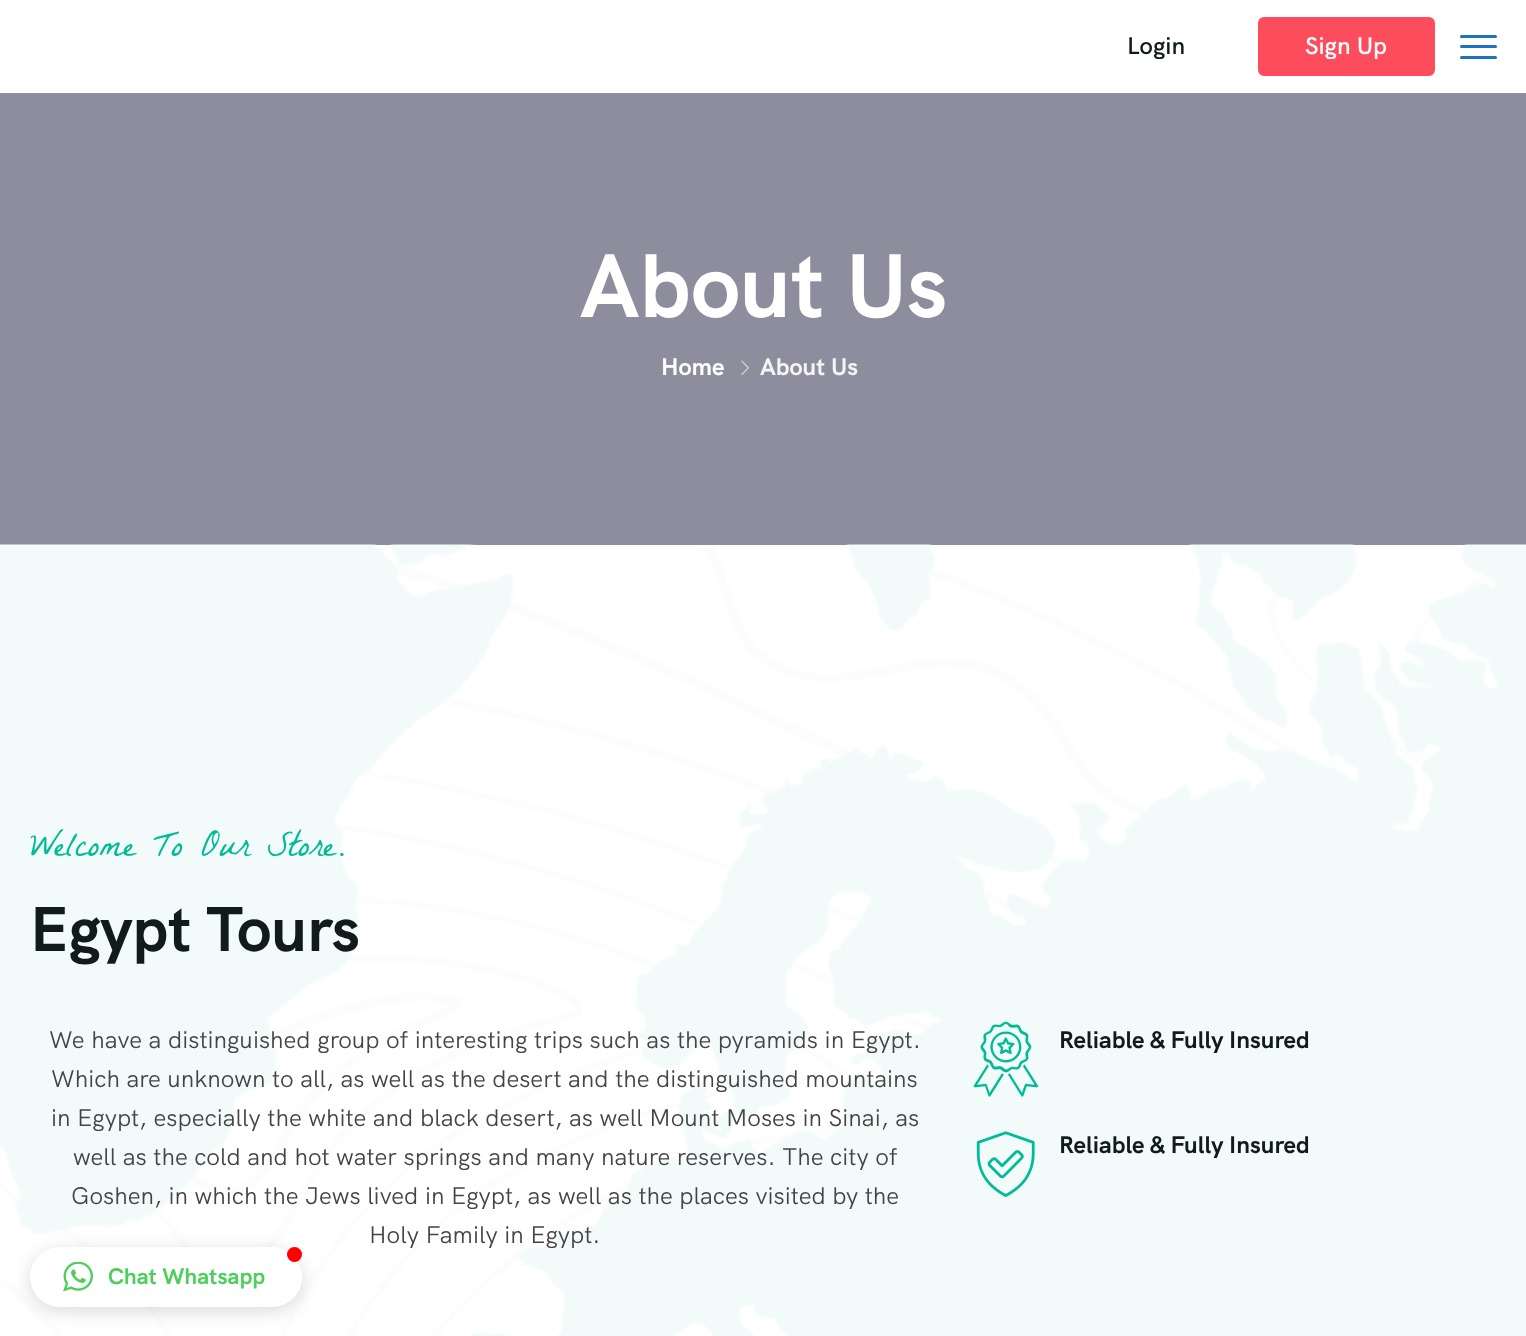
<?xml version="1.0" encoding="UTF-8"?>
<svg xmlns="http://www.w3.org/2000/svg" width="1526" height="1336">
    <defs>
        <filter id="blur1" x="-50%" y="-200%" width="200%" height="500%"><feGaussianBlur stdDeviation="9"/></filter>
    </defs>
    <rect width="100%" height="100%" fill="#FFFFFF"/>
    <rect x="0" y="93" width="1526" height="452" fill="#8D8D9E"/>
    <text x="1127" y="54" font-family="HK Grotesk" font-size="24" font-weight="600" fill="#111B19">Login</text>
    <rect x="1257" y="16" width="179" height="61" rx="7" fill="#FD4C5C" stroke="#FFFFFF" stroke-width="2"/>
    <text x="1305" y="54" font-family="HK Grotesk" font-size="24" font-weight="600" fill="#FFFFFF">Sign Up</text>
    <rect x="1460" y="35" width="37" height="3" rx="1.5" fill="#1E73BE"/>
    <rect x="1460" y="45" width="37" height="3" rx="1.5" fill="#1E73BE"/>
    <rect x="1460" y="56" width="37" height="3" rx="1.5" fill="#1E73BE"/>
    <text x="580" y="317" font-family="HK Grotesk" font-size="90" font-weight="700" fill="#FFFFFF">About Us</text>
    <text x="661" y="375" font-family="HK Grotesk" font-size="24" font-weight="700" fill="#FFFFFF">Home</text>
    <image x="741" y="360" width="9" height="15" href="img_01.png"/>
    <text x="760" y="375" font-family="HK Grotesk" font-size="24" font-weight="700" fill="#F4F4F5">About Us</text>
    <image x="0" y="544" width="1526" height="792" href="img_02.png"/>
    <text x="30" y="856" font-family="La Belle Aurore" font-size="36" fill="#00BB98">Welcome To Our Store.</text>
    <text x="30" y="951" font-family="HK Grotesk" font-size="63" font-weight="700" fill="#111B19">Egypt Tours</text>
    <text x="49" y="1048" font-family="HK Grotesk" font-size="24" fill="#444444">We have a distinguished group of interesting trips such as the pyramids in Egypt.</text>
    <text font-family="HK Grotesk" font-size="24" fill="#444444">
        <tspan x="51" y="1087">Which are unknown to all, as well as the desert and the distinguished mountains</tspan>
        <tspan x="51" y="1126">in Egypt, especially the white and black desert, as well Mount Moses in Sinai, as</tspan>
    </text>
    <text x="73" y="1165" font-family="HK Grotesk" font-size="24" fill="#444444">well as the cold and hot water springs and many nature reserves. The city of</text>
    <text x="71" y="1204" font-family="HK Grotesk" font-size="24" fill="#444444">Goshen, in which the Jews lived in Egypt, as well as the places visited by the</text>
    <text x="369" y="1243" font-family="HK Grotesk" font-size="24" fill="#444444">Holy Family in Egypt.</text>
    <image x="973" y="1021" width="66" height="76" href="img_03.png"/>
    <text x="1059" y="1048" font-family="HK Grotesk" font-size="24" font-weight="700" fill="#111B19">Reliable &amp; Fully Insured</text>
    <image x="976" y="1131" width="59" height="66" href="img_04.png"/>
    <text x="1059" y="1153" font-family="HK Grotesk" font-size="24" font-weight="700" fill="#111B19">Reliable &amp; Fully Insured</text>
    <rect x="30" y="1251" width="272" height="60" rx="30" fill="#000000" fill-opacity="0.15" filter="url(#blur1)"/>
    <rect x="30" y="1247" width="272" height="60" rx="30" fill="#FFFFFF"/>
    <circle cx="294.5" cy="1254.5" r="7.5" fill="#FF0000"/>
    <image x="63" y="1262" width="30" height="30" href="img_05.png"/>
    <text x="108" y="1284" font-family="HK Grotesk" font-size="22.5" font-weight="700" fill="#4FCE5D">Chat Whatsapp</text>
</svg>
